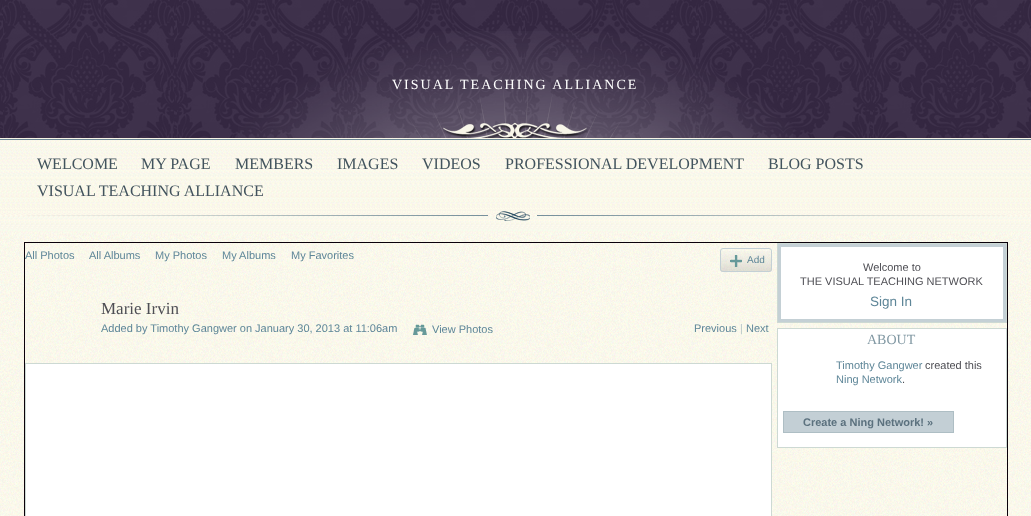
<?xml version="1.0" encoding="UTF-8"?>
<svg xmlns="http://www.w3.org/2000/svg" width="1031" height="516">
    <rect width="100%" height="100%" fill="#3D2E4D"/>
    <image x="0" y="0" width="1031" height="138" href="img_01.png"/>
    <image x="238" y="31" width="555" height="107" href="img_02.png"/>
    <image x="443" y="122" width="145" height="16" href="img_03.png"/>
    <text x="392" y="89" font-family="Liberation Serif" font-size="14" letter-spacing="2" fill="#FFFFFF">VISUAL TEACHING ALLIANCE</text>
    <image x="0" y="138" width="1031" height="94" href="img_04.png"/>
    <image x="25" y="211" width="982" height="10" href="img_05.png"/>
    <text x="37" y="169" font-family="Liberation Serif" font-size="16" fill="#42535D">WELCOME</text>
    <text x="141" y="169" font-family="Liberation Serif" font-size="16" fill="#42535D">MY PAGE</text>
    <text x="235" y="169" font-family="Liberation Serif" font-size="16" fill="#42535D">MEMBERS</text>
    <text x="337" y="169" font-family="Liberation Serif" font-size="16" fill="#42535D">IMAGES</text>
    <text x="422" y="169" font-family="Liberation Serif" font-size="16" fill="#42535D">VIDEOS</text>
    <text x="505" y="169" font-family="Liberation Serif" font-size="16" fill="#42535D">PROFESSIONAL DEVELOPMENT</text>
    <text x="768" y="169" font-family="Liberation Serif" font-size="16" fill="#42535D">BLOG POSTS</text>
    <text x="37" y="196" font-family="Liberation Serif" font-size="16" fill="#42535D">VISUAL TEACHING ALLIANCE</text>
    <image x="0" y="232" width="1031" height="284" href="img_06.png"/>
    <rect x="24.5" y="242.5" width="983" height="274" fill="none" stroke="#0A010A"/>
    <text x="25" y="259" font-family="Liberation Sans" font-size="11" fill="#5E8698">All Photos</text>
    <text x="89" y="259" font-family="Liberation Sans" font-size="11" fill="#5E8698">All Albums</text>
    <text x="155" y="259" font-family="Liberation Sans" font-size="11" fill="#5E8698">My Photos</text>
    <text x="222" y="259" font-family="Liberation Sans" font-size="11" fill="#5E8698">My Albums</text>
    <text x="291" y="259" font-family="Liberation Sans" font-size="11" fill="#5E8698">My Favorites</text>
    <image x="720" y="251" width="52" height="21" href="img_07.png"/>
    <rect x="720.5" y="248.5" width="51" height="23" rx="2.5" fill="none" stroke="#C4D0D5"/>
    <image x="730" y="255" width="12" height="12" href="img_08.png"/>
    <text x="747" y="263" font-family="Liberation Sans" font-size="10" fill="#5E8698">Add</text>
    <text x="101" y="314" font-family="Liberation Serif" font-size="17" fill="#4E4E54">Marie Irvin</text>
    <text x="101" y="332" font-family="Liberation Sans" font-size="11" fill="#5E8698">Added by Timothy Gangwer on January 30, 2013 at 11:06am</text>
    <image x="413" y="324" width="14" height="11" href="img_09.png"/>
    <text x="432" y="333" font-family="Liberation Sans" font-size="11" fill="#5E8698">View Photos</text>
    <text x="694" y="332" font-family="Liberation Sans" font-size="11" fill="#5E8698">Previous</text>
    <text x="740" y="332" font-family="Liberation Sans" font-size="11" fill="#BBCACA">|</text>
    <text x="746" y="332" font-family="Liberation Sans" font-size="11" fill="#5E8698">Next</text>
    <rect x="25.5" y="363.5" width="746" height="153" fill="#FFFFFF" stroke="#CDD9D3"/>
    <rect x="781" y="247" width="222" height="72" fill="#FFFFFF"/>
    <rect x="777.5" y="243.5" width="229" height="79" fill="none" stroke="#CDD9D3"/>
    <rect x="779.5" y="245.5" width="225" height="75" fill="none" stroke="#C4D0D5" stroke-width="3"/>
    <text x="863" y="271" font-family="Liberation Sans" font-size="11" fill="#4E4E54">Welcome to</text>
    <text x="800" y="285" font-family="Liberation Sans" font-size="11" fill="#4E4E54">THE VISUAL TEACHING NETWORK</text>
    <text x="870" y="306" font-family="Liberation Sans" font-size="13.5" fill="#5E8698">Sign In</text>
    <rect x="777.5" y="328.5" width="229" height="119" fill="#FFFFFF" stroke="#CDD9D3"/>
    <text x="867" y="344" font-family="Liberation Serif" font-size="14" fill="#8198A3">ABOUT</text>
    <text x="836" y="369" font-family="Liberation Sans" font-size="11" fill="#5E8698">Timothy Gangwer</text>
    <text x="925" y="369" font-family="Liberation Sans" font-size="11" fill="#4E4E54">created this</text>
    <text x="836" y="383" font-family="Liberation Sans" font-size="11" fill="#5E8698">Ning Network</text>
    <text x="902" y="383" font-family="Liberation Sans" font-size="11" fill="#4E4E54">.</text>
    <rect x="783.5" y="411.5" width="170" height="21" fill="#C3CFD5" stroke="#AEBEC4"/>
    <text x="803" y="426" font-family="Liberation Sans" font-size="11" font-weight="700" fill="#5B717E">Create a Ning Network! »</text>
</svg>
